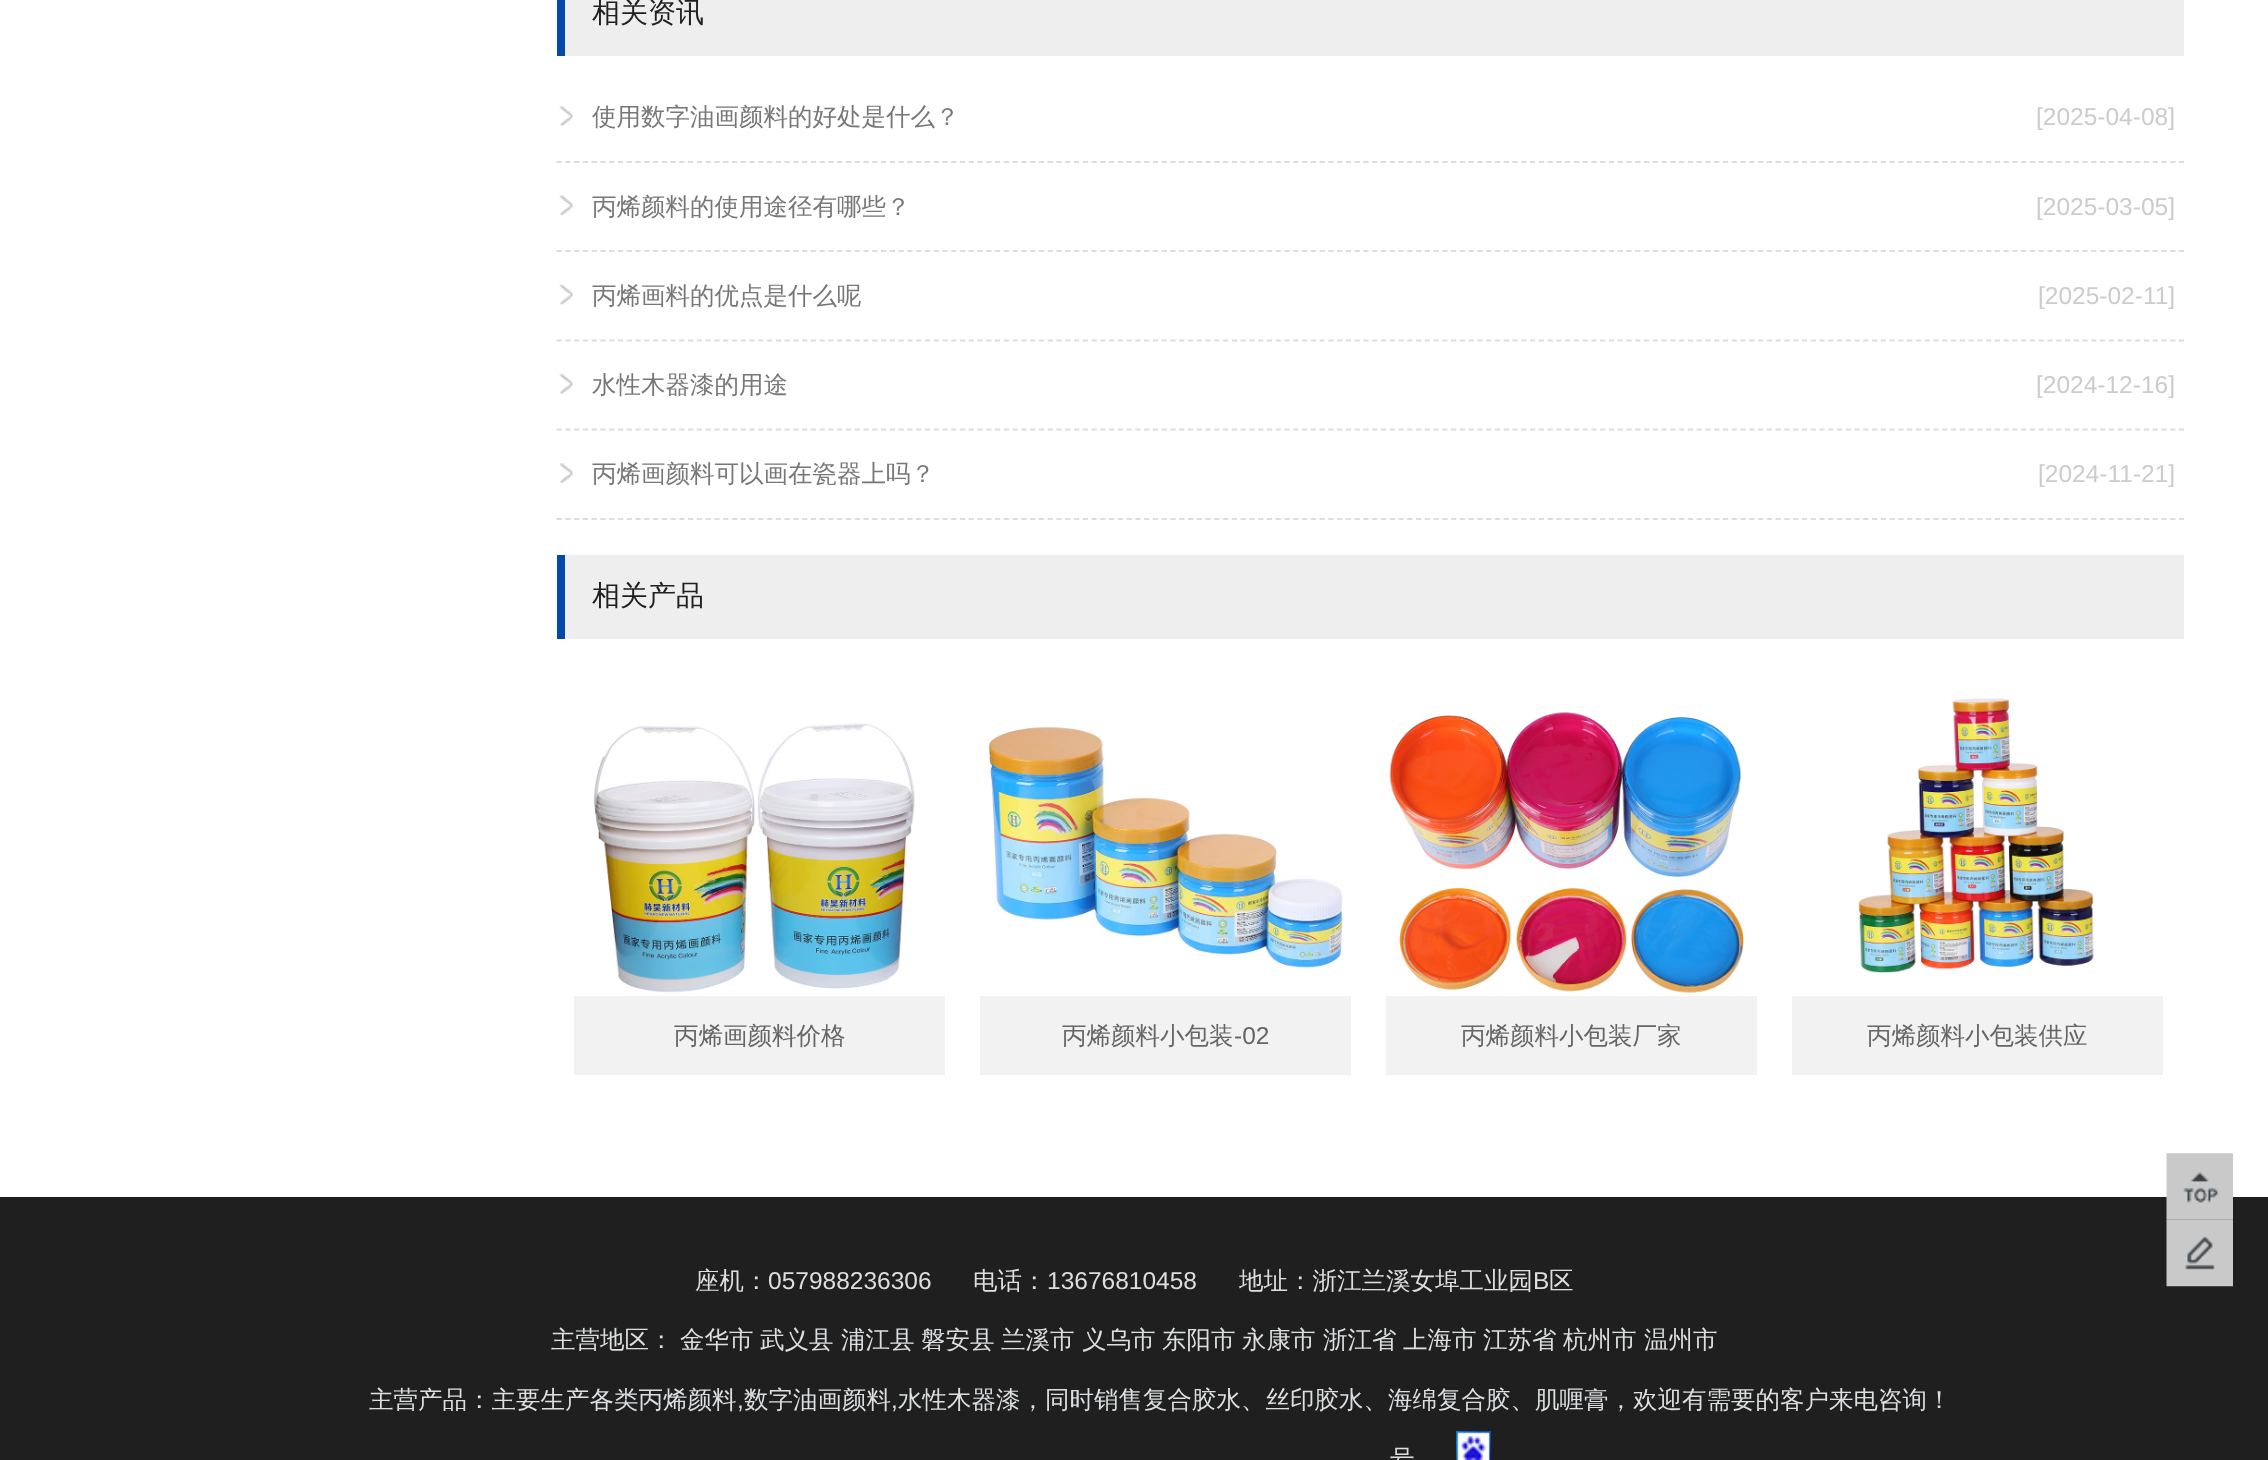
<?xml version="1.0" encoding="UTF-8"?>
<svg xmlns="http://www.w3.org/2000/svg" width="2268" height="1460">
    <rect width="100%" height="100%" fill="#FFFFFF"/>
    <rect x="565" y="0" width="1619" height="56" fill="#EEEEEE"/>
    <rect x="557" y="0" width="8" height="56" fill="#0349A8"/>
    <text x="592" y="22" font-family="WenQuanYi Zen Hei" font-size="28" font-weight="500" fill="#202020">相关资讯</text>
    <image x="559" y="106" width="14" height="20" href="img_01.png"/>
    <path d="M 556.5 162 H 2184" fill="none" stroke="#DDDDDD" stroke-width="1.8" stroke-dasharray="5.25 3.52"/>
    <text x="592" y="125" font-family="WenQuanYi Zen Hei" font-size="24.5" font-weight="500" fill="#777777">使用数字油画颜料的好处是什么？</text>
    <text x="2036" y="125" font-family="Liberation Sans" font-size="24.5" fill="#CCCCCC">[2025-04-08]</text>
    <image x="559" y="195" width="14" height="21" href="img_02.png"/>
    <path d="M 556.5 251 H 2184" fill="none" stroke="#DDDDDD" stroke-width="1.8" stroke-dasharray="5.25 3.52"/>
    <text x="592" y="215" font-family="WenQuanYi Zen Hei" font-size="24.5" font-weight="500" fill="#777777">丙烯颜料的使用途径有哪些？</text>
    <text x="2036" y="215" font-family="Liberation Sans" font-size="24.5" fill="#CCCCCC">[2025-03-05]</text>
    <image x="559" y="284" width="14" height="21" href="img_03.png"/>
    <path d="M 556.5 340.5 H 2184" fill="none" stroke="#DDDDDD" stroke-width="1.8" stroke-dasharray="5.25 3.52"/>
    <text x="592" y="304" font-family="WenQuanYi Zen Hei" font-size="24.5" font-weight="500" fill="#777777">丙烯画料的优点是什么呢</text>
    <text x="2038" y="304" font-family="Liberation Sans" font-size="24.5" fill="#CCCCCC">[2025-02-11]</text>
    <image x="559" y="373" width="14" height="21" href="img_04.png"/>
    <path d="M 556.5 429.5 H 2184" fill="none" stroke="#DDDDDD" stroke-width="1.8" stroke-dasharray="5.25 3.52"/>
    <text x="592" y="393" font-family="WenQuanYi Zen Hei" font-size="24.5" font-weight="500" fill="#777777">水性木器漆的用途</text>
    <text x="2036" y="393" font-family="Liberation Sans" font-size="24.5" fill="#CCCCCC">[2024-12-16]</text>
    <image x="559" y="463" width="14" height="20" href="img_05.png"/>
    <path d="M 556.5 519 H 2184" fill="none" stroke="#DDDDDD" stroke-width="1.8" stroke-dasharray="5.25 3.52"/>
    <text x="592" y="482" font-family="WenQuanYi Zen Hei" font-size="24.5" font-weight="500" fill="#777777">丙烯画颜料可以画在瓷器上吗？</text>
    <text x="2038" y="482" font-family="Liberation Sans" font-size="24.5" fill="#CCCCCC">[2024-11-21]</text>
    <rect x="565" y="555" width="1619" height="84" fill="#EEEEEE"/>
    <rect x="557" y="555" width="8" height="84" fill="#0349A8"/>
    <text x="592" y="605" font-family="WenQuanYi Zen Hei" font-size="28" font-weight="500" fill="#202020">相关产品</text>
    <image x="593" y="723" width="322" height="270" href="img_06.png"/>
    <rect x="574" y="996" width="371" height="79" fill="#F2F2F2"/>
    <text x="674" y="1044" font-family="WenQuanYi Zen Hei" font-size="24.5" font-weight="500" fill="#666666">丙烯画颜料价格</text>
    <image x="988" y="727" width="355" height="241" href="img_07.png"/>
    <rect x="980" y="996" width="371" height="79" fill="#F2F2F2"/>
    <text x="1062" y="1044" font-family="WenQuanYi Zen Hei" font-size="24.5" font-weight="500" fill="#666666">丙烯颜料小包装</text>
    <text x="1234" y="1044" font-family="Liberation Sans" font-size="24.5" fill="#666666">-02</text>
    <image x="1389" y="712" width="355" height="281" href="img_08.png"/>
    <rect x="1386" y="996" width="371" height="79" fill="#F2F2F2"/>
    <text x="1461" y="1044" font-family="WenQuanYi Zen Hei" font-size="24.5" font-weight="500" fill="#666666">丙烯颜料小包装厂家</text>
    <image x="1858" y="698" width="236" height="275" href="img_09.png"/>
    <rect x="1792" y="996" width="371" height="79" fill="#F2F2F2"/>
    <text x="1867" y="1044" font-family="WenQuanYi Zen Hei" font-size="24.5" font-weight="500" fill="#666666">丙烯颜料小包装供应</text>
    <rect x="0" y="1197" width="2268" height="263" fill="#1F1F1F"/>
    <image x="2166" y="1219" width="67" height="68" href="img_11.png"/>
    <image x="2166" y="1153" width="67" height="67" href="img_10.png"/>
    <text x="695" y="1289" font-family="WenQuanYi Zen Hei" font-size="24.5" font-weight="500" fill="#DCDEE0">座机：</text>
    <text x="768" y="1289" font-family="Liberation Sans" font-size="24.5" fill="#DCDEE0">057988236306</text>
    <text x="973" y="1289" font-family="WenQuanYi Zen Hei" font-size="24.5" font-weight="500" fill="#DCDEE0">电话：</text>
    <text x="1047" y="1289" font-family="Liberation Sans" font-size="24.5" fill="#DCDEE0">13676810458</text>
    <text x="1239" y="1289" font-family="WenQuanYi Zen Hei" font-size="24.5" font-weight="500" fill="#DCDEE0">地址：浙江兰溪女埠工业园</text>
    <text x="1533" y="1289" font-family="Liberation Sans" font-size="24.5" fill="#DCDEE0">B</text>
    <text x="1549" y="1289" font-family="WenQuanYi Zen Hei" font-size="24.5" font-weight="500" fill="#DCDEE0">区</text>
    <text x="551" y="1348" font-family="WenQuanYi Zen Hei" font-size="24.5" font-weight="500" fill="#DCDEE0">主营地区：</text>
    <text x="680" y="1348" font-family="WenQuanYi Zen Hei" font-size="24.5" font-weight="500" fill="#DCDEE0">金华市</text>
    <text x="760" y="1348" font-family="WenQuanYi Zen Hei" font-size="24.5" font-weight="500" fill="#DCDEE0">武义县</text>
    <text x="841" y="1348" font-family="WenQuanYi Zen Hei" font-size="24.5" font-weight="500" fill="#DCDEE0">浦江县</text>
    <text x="921" y="1348" font-family="WenQuanYi Zen Hei" font-size="24.5" font-weight="500" fill="#DCDEE0">磐安县</text>
    <text x="1001" y="1348" font-family="WenQuanYi Zen Hei" font-size="24.5" font-weight="500" fill="#DCDEE0">兰溪市</text>
    <text x="1082" y="1348" font-family="WenQuanYi Zen Hei" font-size="24.5" font-weight="500" fill="#DCDEE0">义乌市</text>
    <text x="1162" y="1348" font-family="WenQuanYi Zen Hei" font-size="24.5" font-weight="500" fill="#DCDEE0">东阳市</text>
    <text x="1242" y="1348" font-family="WenQuanYi Zen Hei" font-size="24.5" font-weight="500" fill="#DCDEE0">永康市</text>
    <text x="1323" y="1348" font-family="WenQuanYi Zen Hei" font-size="24.5" font-weight="500" fill="#DCDEE0">浙江省</text>
    <text x="1403" y="1348" font-family="WenQuanYi Zen Hei" font-size="24.5" font-weight="500" fill="#DCDEE0">上海市</text>
    <text x="1483" y="1348" font-family="WenQuanYi Zen Hei" font-size="24.5" font-weight="500" fill="#DCDEE0">江苏省</text>
    <text x="1563" y="1348" font-family="WenQuanYi Zen Hei" font-size="24.5" font-weight="500" fill="#DCDEE0">杭州市</text>
    <text x="1644" y="1348" font-family="WenQuanYi Zen Hei" font-size="24.5" font-weight="500" fill="#DCDEE0">温州市</text>
    <text x="369" y="1408" font-family="WenQuanYi Zen Hei" font-size="24.5" font-weight="500" fill="#DCDEE0">主营产品：主要生产各类丙烯颜料</text>
    <text x="737" y="1408" font-family="Liberation Sans" font-size="24.5" fill="#DCDEE0">,</text>
    <text x="744" y="1408" font-family="WenQuanYi Zen Hei" font-size="24.5" font-weight="500" fill="#DCDEE0">数字油画颜料</text>
    <text x="891" y="1408" font-family="Liberation Sans" font-size="24.5" fill="#DCDEE0">,</text>
    <text x="898" y="1408" font-family="WenQuanYi Zen Hei" font-size="24.5" font-weight="500" fill="#DCDEE0">水性木器漆，同时销售复合胶水、丝印胶水、海绵复合胶、肌喱膏，欢迎有需要的客户来电咨询！</text>
    <text x="1390" y="1467" font-family="WenQuanYi Zen Hei" font-size="24.5" font-weight="500" fill="#DCDEE0">号</text>
    <image x="1456" y="1431" width="35" height="29" href="img_12.png"/>
</svg>
